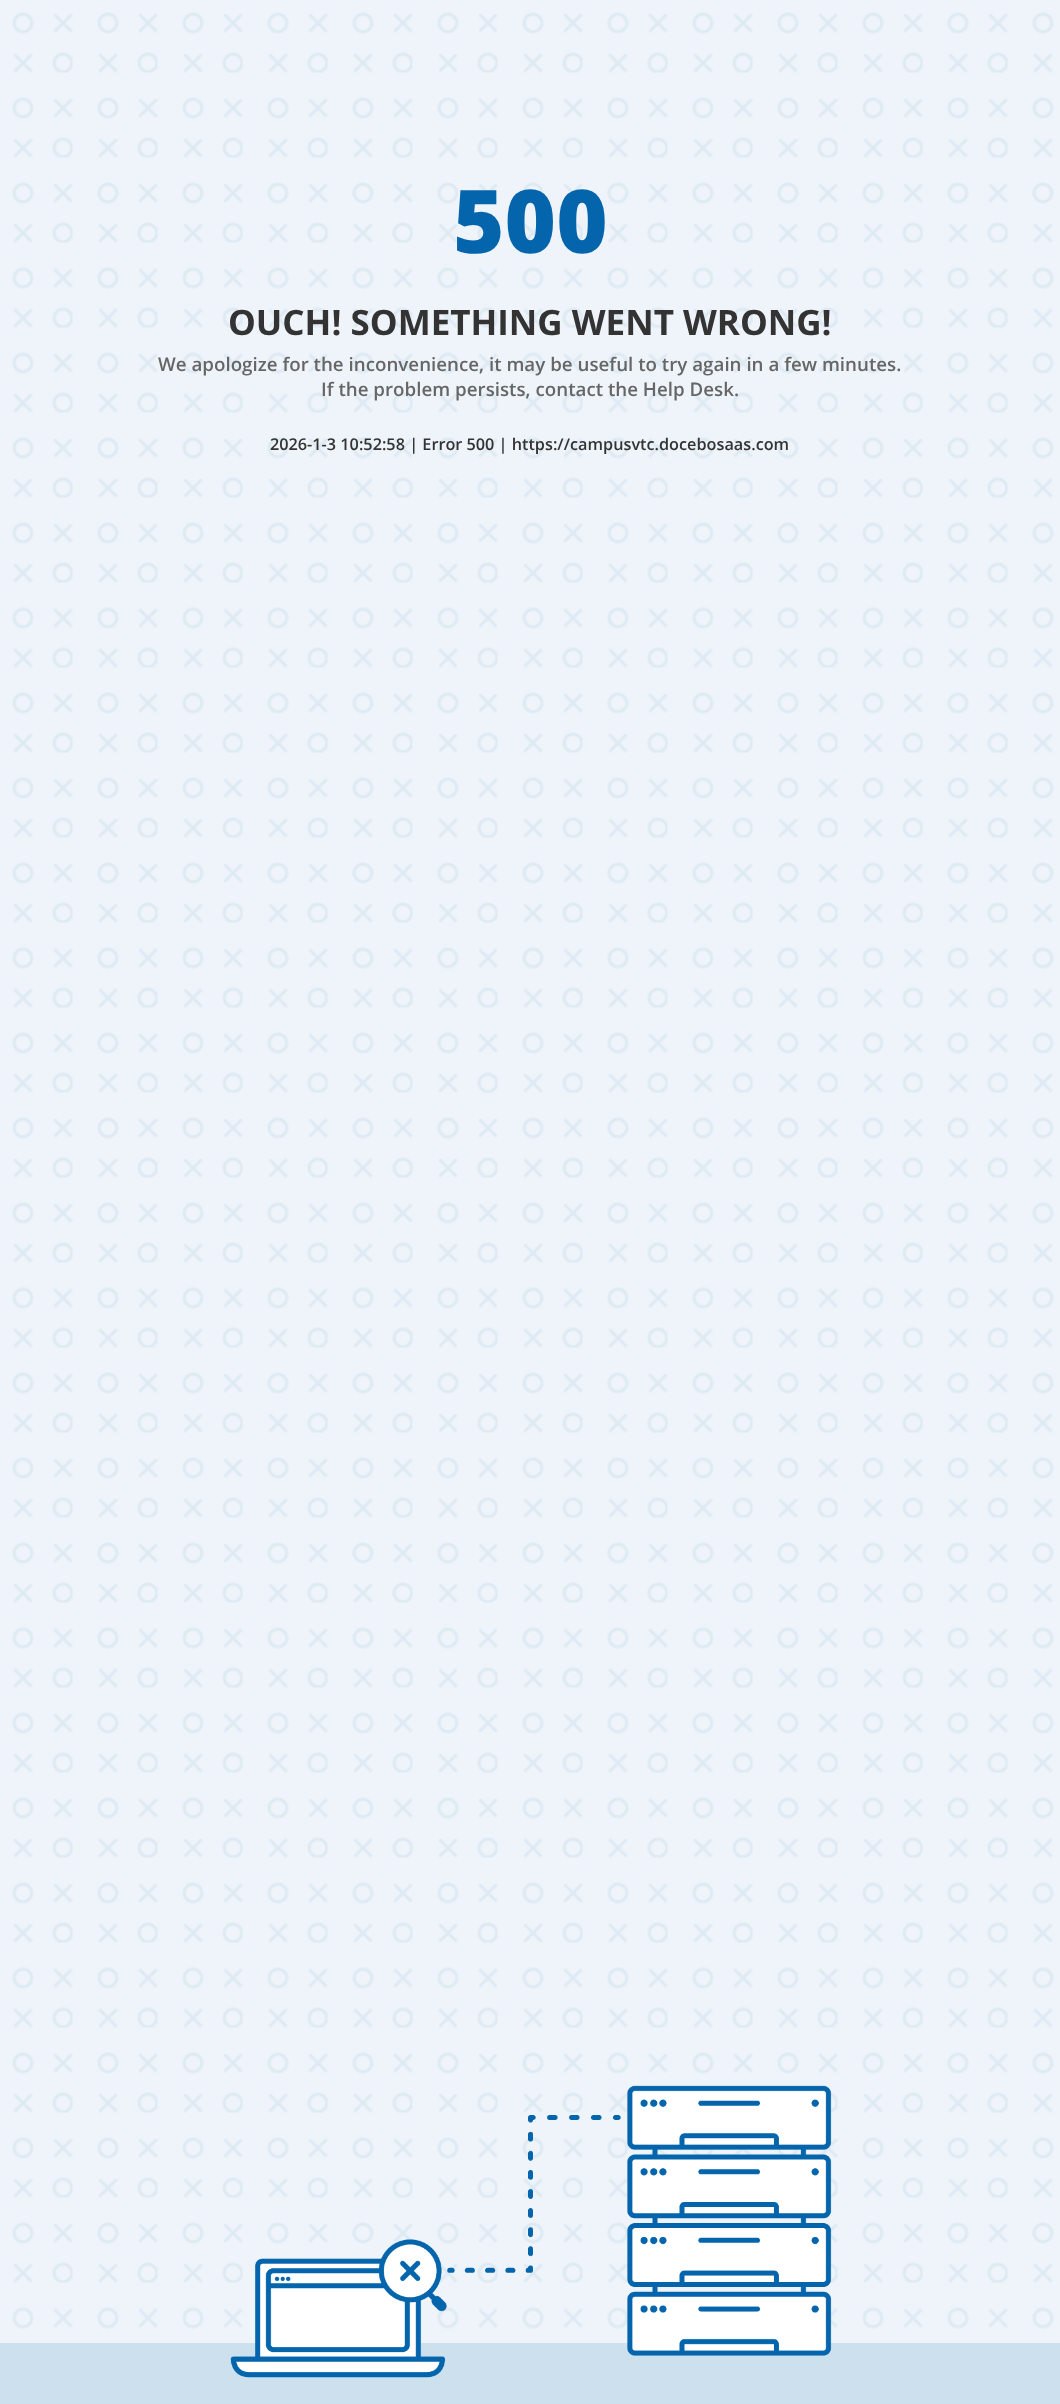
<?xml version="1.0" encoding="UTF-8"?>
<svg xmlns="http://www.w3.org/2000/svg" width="1060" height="2404">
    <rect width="100%" height="100%" fill="#EEF4F9"/>
    <image x="12" y="12" width="1042" height="2317" href="img_01.png"/>
    <rect x="0" y="2343" width="1060" height="61" fill="#CDE0EE"/>
    <text x="453" y="253" font-family="Open Sans" font-size="88" font-weight="800" fill="#0465AC">500</text>
    <text x="228" y="335" font-family="Open Sans" font-size="35" font-weight="700" fill="#333333">OUCH! SOMETHING WENT WRONG!</text>
    <text x="158" y="371" font-family="Open Sans" font-size="18.75" font-weight="600" fill="#666666">We apologize for the inconvenience, it may be useful to try again in a few minutes.</text>
    <text x="321" y="396" font-family="Open Sans" font-size="18.75" font-weight="600" fill="#666666">If the problem persists, contact the Help Desk.</text>
    <text x="270" y="450" font-family="Open Sans" font-size="16.25" font-weight="600" fill="#333333">2026-1-3 10:52:58 | Error 500 | https://campusvtc.docebosaas.com</text>
    <image x="230" y="2085" width="602" height="293" href="img_02.png"/>
</svg>
